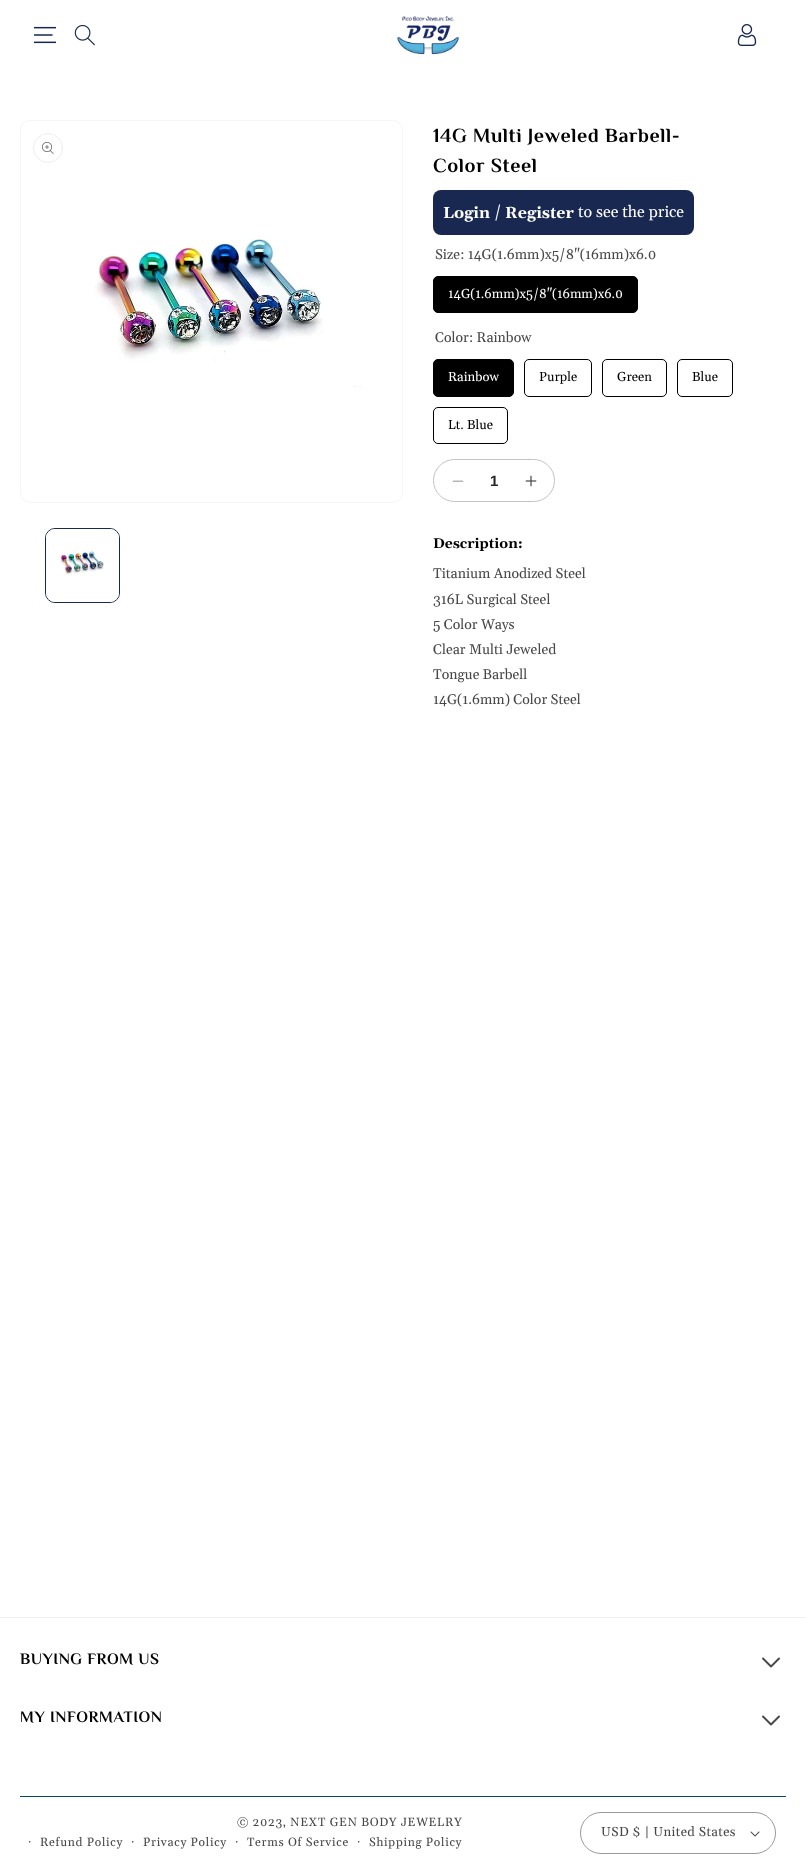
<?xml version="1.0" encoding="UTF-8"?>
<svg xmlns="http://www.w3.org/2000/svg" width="806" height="1862">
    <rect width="100%" height="100%" fill="#FFFFFF"/>
    <image x="34" y="26" width="22" height="18" href="img_01.png"/>
    <image x="74" y="24" width="21" height="22" href="img_02.png"/>
    <image x="396" y="16" width="64" height="39" href="img_03.png"/>
    <image x="737" y="24" width="20" height="22" href="img_04.png"/>
    <rect x="20.5" y="120.5" width="382" height="382" rx="9.5" fill="none" stroke="#F6F6F6"/>
    <circle cx="48" cy="148" r="14.5" fill="none" stroke="#EDEDED"/>
    <image x="42" y="142" width="12" height="12" href="img_05.png"/>
    <image x="94" y="239" width="267" height="149" href="img_06.png"/>
    <rect x="45.5" y="528.5" width="74" height="74" rx="9.5" fill="none" stroke="#182851"/>
    <image x="46" y="529" width="73" height="73" href="img_07.png"/>
    <text font-family="Philosopher" font-size="20" font-weight="700" letter-spacing="0.6" fill="#000000">
        <tspan x="433" y="142">14G Multi Jeweled Barbell-</tspan>
        <tspan x="433" y="172">Color Steel</tspan>
    </text>
    <rect x="433" y="190" width="261" height="45" rx="8" fill="#182851"/>
    <text x="443" y="218" font-family="Gelasio" font-size="16" font-weight="700" fill="#FFFFFF">Login</text>
    <text x="494" y="217" font-family="Gelasio" font-size="16" fill="#FFFFFF">/</text>
    <text x="505" y="218" font-family="Gelasio" font-size="16" font-weight="700" fill="#FFFFFF">Register</text>
    <text x="578" y="217" font-family="Gelasio" font-size="16" fill="#FFFFFF">to see the price</text>
    <text x="435" y="259" font-family="Gelasio" font-size="14" fill="#474747">Size: 14G(1.6mm)x5/8"(16mm)x6.0</text>
    <rect x="433.5" y="276.5" width="204" height="36" rx="4.5" fill="#000000" stroke="#000000"/>
    <text x="448" y="298" font-family="Gelasio" font-size="13" fill="#FFFFFF">14G(1.6mm)x5/8"(16mm)x6.0</text>
    <text x="435" y="342" font-family="Gelasio" font-size="14" fill="#474747">Color: Rainbow</text>
    <rect x="433.5" y="359.5" width="80" height="37" rx="4.5" fill="#000000" stroke="#000000"/>
    <text x="448" y="381" font-family="Gelasio" font-size="13" fill="#FFFFFF">Rainbow</text>
    <rect x="524.5" y="359.5" width="67" height="37" rx="4.5" fill="none" stroke="#000000"/>
    <text x="539" y="381" font-family="Gelasio" font-size="13" fill="#000000">Purple</text>
    <rect x="602.5" y="359.5" width="64" height="37" rx="4.5" fill="none" stroke="#000000"/>
    <text x="617" y="381" font-family="Gelasio" font-size="13" fill="#000000">Green</text>
    <rect x="677.5" y="359.5" width="55" height="37" rx="4.5" fill="none" stroke="#000000"/>
    <text x="692" y="381" font-family="Gelasio" font-size="13" fill="#000000">Blue</text>
    <rect x="433.5" y="407.5" width="74" height="36" rx="4.5" fill="none" stroke="#000000"/>
    <text x="448" y="429" font-family="Gelasio" font-size="13" fill="#000000">Lt. Blue</text>
    <rect x="433.5" y="459.5" width="121" height="42" rx="21" fill="none" stroke="#C3C3C3"/>
    <image x="452" y="480" width="12" height="2" href="img_08.png"/>
    <text x="490" y="486" font-family="Liberation Sans" font-size="15" font-weight="700" fill="#262626">1</text>
    <image x="525" y="475" width="12" height="12" href="img_09.png"/>
    <text x="433" y="548" font-family="Gelasio" font-size="14" font-weight="700" fill="#000000">Description:</text>
    <text font-family="Gelasio" font-size="14" fill="#474747">
        <tspan x="433" y="578">Titanium Anodized Steel</tspan>
        <tspan x="433" y="604">316L Surgical Steel</tspan>
        <tspan x="433" y="629">5 Color Ways</tspan>
        <tspan x="433" y="654">Clear Multi Jeweled</tspan>
        <tspan x="433" y="679">Tongue Barbell</tspan>
        <tspan x="433" y="704">14G(1.6mm) Color Steel</tspan>
    </text>
    <rect x="0" y="1617" width="806" height="1" fill="#F0F0F0"/>
    <text x="20" y="1664" font-family="Philosopher" font-size="16" font-weight="700" letter-spacing="0.6" fill="#000000">BUYING FROM US</text>
    <image x="762" y="1657" width="18" height="11" href="img_10.png"/>
    <text x="20" y="1722" font-family="Philosopher" font-size="16" font-weight="700" letter-spacing="0.6" fill="#000000">MY INFORMATION</text>
    <image x="762" y="1715" width="18" height="11" href="img_10.png"/>
    <rect x="20" y="1796" width="766" height="1" fill="#044B61"/>
    <text x="237" y="1826" font-family="Gelasio" font-size="12" letter-spacing="0.7" fill="#474747">© 2023, NEXT GEN BODY JEWELRY</text>
    <text x="28" y="1846" font-family="Gelasio" font-size="12" letter-spacing="0.7" fill="#474747">·</text>
    <text x="40" y="1846" font-family="Gelasio" font-size="12" letter-spacing="0.7" fill="#474747">Refund Policy</text>
    <text x="131" y="1846" font-family="Gelasio" font-size="12" letter-spacing="0.7" fill="#474747">·</text>
    <text x="143" y="1846" font-family="Gelasio" font-size="12" letter-spacing="0.7" fill="#474747">Privacy Policy</text>
    <text x="235" y="1846" font-family="Gelasio" font-size="12" letter-spacing="0.7" fill="#474747">·</text>
    <text x="247" y="1846" font-family="Gelasio" font-size="12" letter-spacing="0.7" fill="#474747">Terms Of Service</text>
    <text x="357" y="1846" font-family="Gelasio" font-size="12" letter-spacing="0.7" fill="#474747">·</text>
    <text x="369" y="1846" font-family="Gelasio" font-size="12" letter-spacing="0.7" fill="#474747">Shipping Policy</text>
    <image x="750" y="1831" width="10" height="6" href="img_11.png"/>
    <rect x="580.5" y="1812.5" width="195" height="41" rx="20.5" fill="none" stroke="#9A9A9A"/>
    <text x="601" y="1836" font-family="Gelasio" font-size="13" letter-spacing="0.4" fill="#474747">USD $ | United States</text>
</svg>
